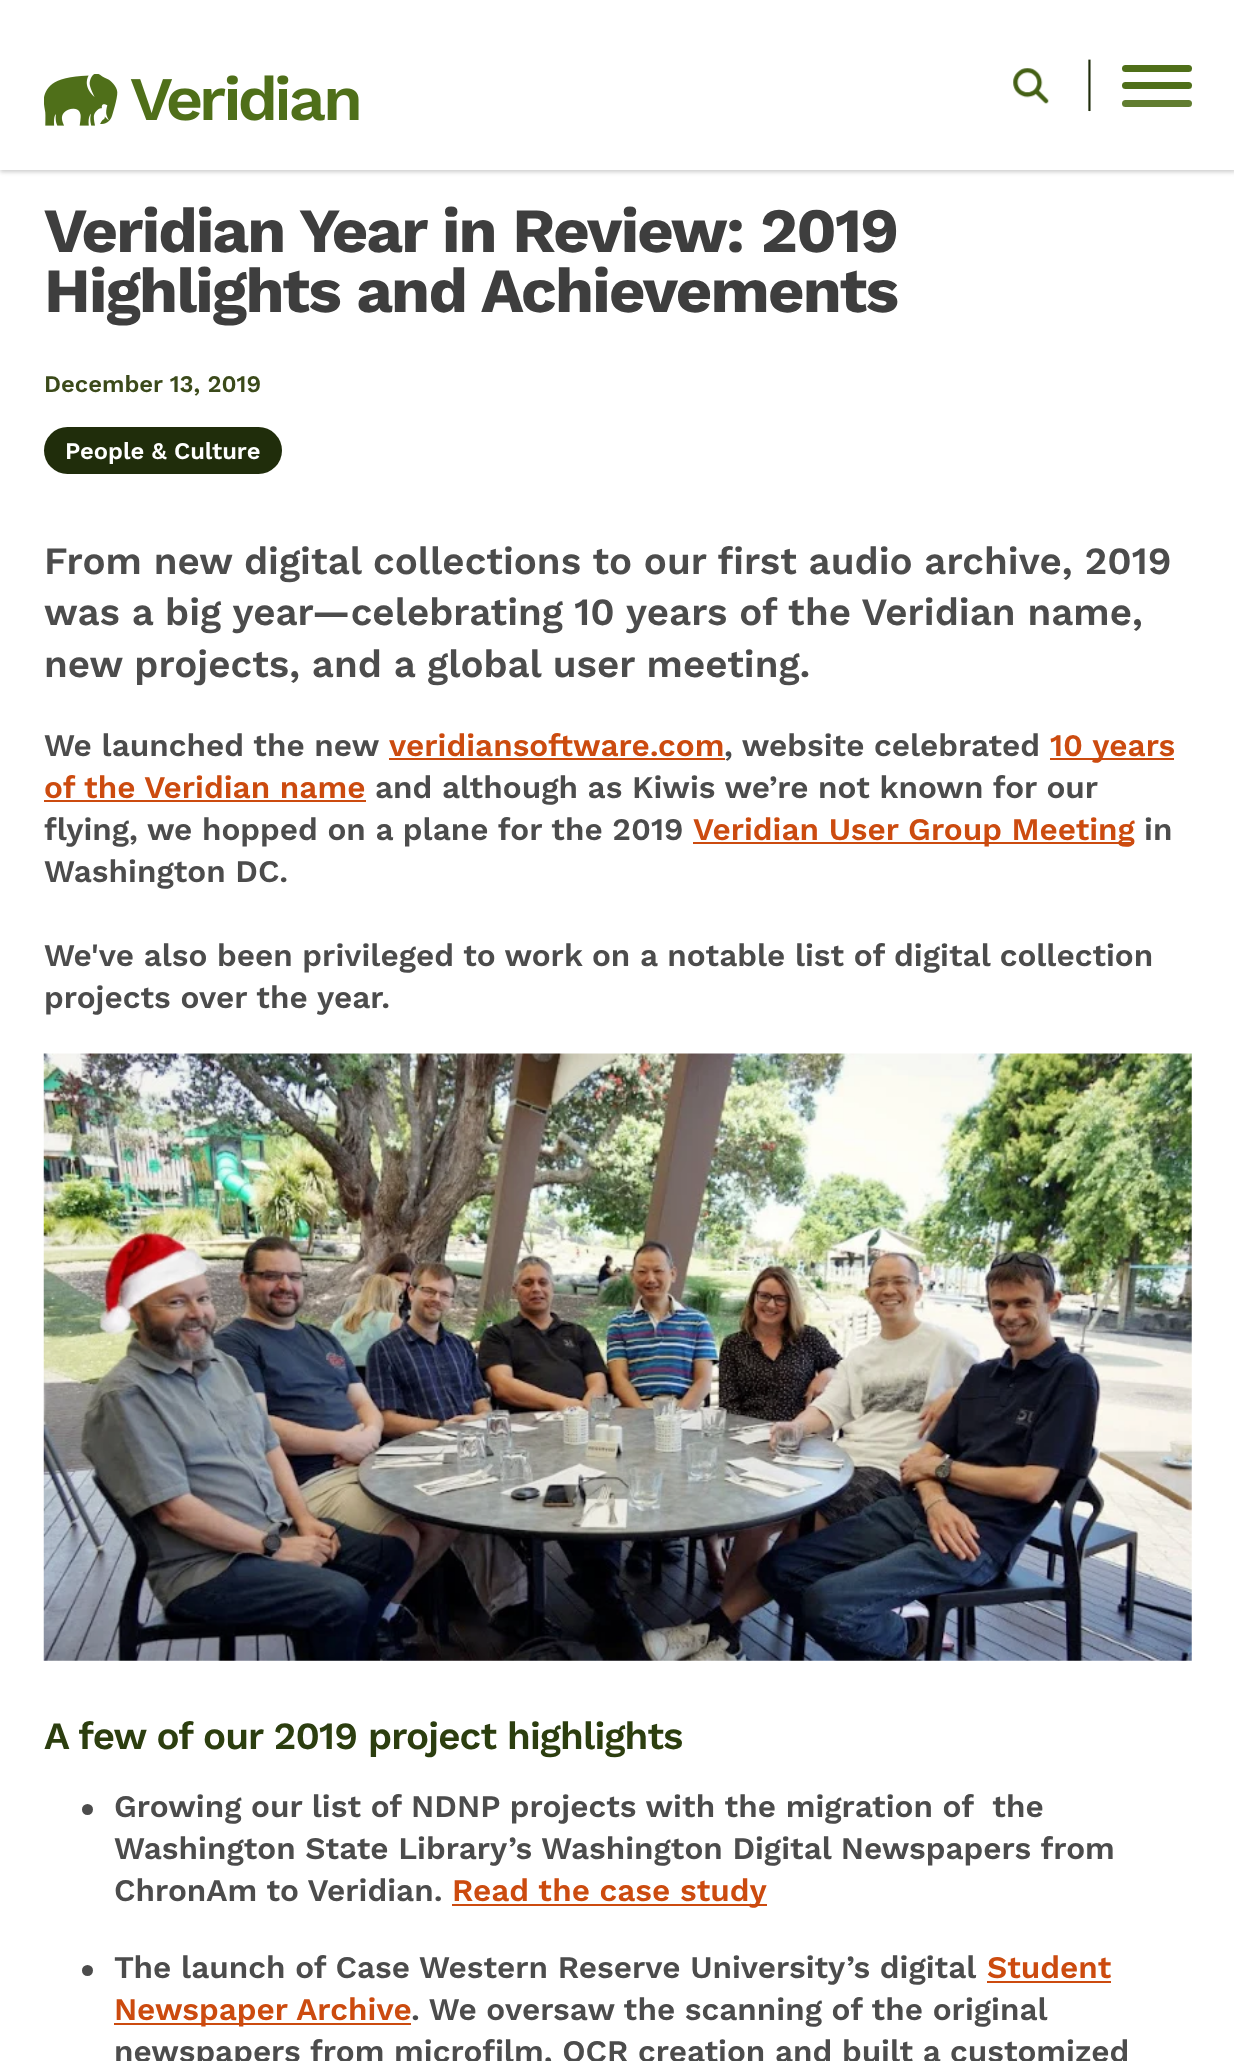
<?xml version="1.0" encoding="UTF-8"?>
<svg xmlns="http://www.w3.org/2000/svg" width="1234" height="2061">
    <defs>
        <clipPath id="clip1"><path d="M 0 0 H 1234 V 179 H 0 Z M 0 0 H 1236 V 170 H 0 Z" clip-rule="evenodd"/></clipPath>
        <filter id="blur1" x="-50%" y="-200%" width="200%" height="500%"><feGaussianBlur stdDeviation="2"/></filter>
    </defs>
    <rect width="100%" height="100%" fill="#FFFFFF"/>
    <g clip-path="url(#clip1)">
        <rect x="0" y="2" width="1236" height="170" fill="#000000" fill-opacity="0.2" filter="url(#blur1)"/>
    </g>
    <rect x="0" y="169" width="1234" height="1" fill="#FFFFFF" fill-opacity="0.9"/>
    <image x="44" y="74" width="315" height="52" href="img_01.png"/>
    <image x="1013" y="68" width="36" height="36" href="img_02.png"/>
    <text x="1083" y="103" font-family="Roboto" font-size="61" font-weight="200" fill="#202D0C">|</text>
    <rect x="1122" y="100" width="70" height="7" rx="3.5" fill="#617D30"/>
    <rect x="1122" y="65" width="70" height="7" rx="3.5" fill="#4F6F19"/>
    <rect x="1122" y="82" width="70" height="7" rx="3.5" fill="#4F6F19"/>
    <text font-family="Work Sans" font-size="63" font-weight="700" letter-spacing="-1.75" fill="#3E3E3E">
        <tspan x="44" y="252">Veridian Year in Review: 2019</tspan>
        <tspan x="44" y="312">Highlights and Achievements</tspan>
    </text>
    <text x="44" y="392" font-family="Work Sans" font-size="23.75" font-weight="600" fill="#3B4A1A">December 13, 2019</text>
    <rect x="44" y="427" width="238" height="47" rx="23.5" fill="#202D0B"/>
    <text x="65" y="459" font-family="Work Sans" font-size="23.75" font-weight="600" fill="#FFFFFF">People &amp; Culture</text>
    <text font-family="Work Sans" font-size="38.5" font-weight="600" fill="#4C4C4C">
        <tspan x="44" y="574">From new digital collections to our first audio archive, 2019</tspan>
        <tspan x="44" y="625">was a big year—celebrating 10 years of the Veridian name,</tspan>
        <tspan x="44" y="677">new projects, and a global user meeting.</tspan>
    </text>
    <text x="44" y="756" font-family="Work Sans" font-size="31.5" font-weight="600" fill="#4C4C4C">We launched the new</text>
    <text x="389" y="756" font-family="Work Sans" font-size="31.5" font-weight="600" fill="#CC4B0F">veridiansoftware.com</text>
    <rect x="389" y="758" width="336" height="2" fill="#CC4B0F"/>
    <text x="724" y="756" font-family="Work Sans" font-size="31.5" font-weight="600" fill="#4C4C4C">, website celebrated</text>
    <rect x="1050" y="758" width="124" height="2" fill="#CC4B0F"/>
    <text x="1050" y="756" font-family="Work Sans" font-size="31.5" font-weight="600" fill="#CC4B0F">10 years</text>
    <text x="44" y="798" font-family="Work Sans" font-size="31.5" font-weight="600" fill="#CC4B0F">of the Veridian name</text>
    <rect x="44" y="800" width="322" height="2" fill="#CC4B0F"/>
    <text x="375" y="798" font-family="Work Sans" font-size="31.5" font-weight="600" fill="#4C4C4C">and although as Kiwis we’re not known for our</text>
    <text x="44" y="840" font-family="Work Sans" font-size="31.5" font-weight="600" fill="#4C4C4C">flying, we hopped on a plane for the 2019</text>
    <rect x="693" y="842" width="441" height="2" fill="#CC4B0F"/>
    <text x="693" y="840" font-family="Work Sans" font-size="31.5" font-weight="600" fill="#CC4B0F">Veridian User Group Meeting</text>
    <text x="1144" y="840" font-family="Work Sans" font-size="31.5" font-weight="600" fill="#4C4C4C">in</text>
    <text x="44" y="882" font-family="Work Sans" font-size="31.5" font-weight="600" fill="#4C4C4C">Washington DC.</text>
    <text font-family="Work Sans" font-size="31.5" font-weight="600" fill="#4C4C4C">
        <tspan x="44" y="966">We've also been privileged to work on a notable list of digital collection</tspan>
        <tspan x="44" y="1008">projects over the year.</tspan>
    </text>
    <image x="43" y="1053" width="1149" height="608" href="img_03.png"/>
    <text x="44" y="1749" font-family="Work Sans" font-size="38.5" font-weight="600" letter-spacing="-0.9" fill="#2C3E0F">A few of our 2019 project highlights</text>
    <circle cx="87.5" cy="1809.5" r="5.5" fill="#4C4C4C"/>
    <text font-family="Work Sans" font-size="31.5" font-weight="600" fill="#4C4C4C" xml:space="preserve"><tspan x="114" y="1817">Growing our list of NDNP projects with the migration of  the</tspan><tspan x="114" y="1859">Washington State Library’s Washington Digital Newspapers from</tspan><tspan x="114" y="1901">ChronAm to Veridian.</tspan></text>
    <rect x="452" y="1904" width="315" height="2" fill="#CC4B0F"/>
    <text x="452" y="1901" font-family="Work Sans" font-size="31.5" font-weight="600" fill="#CC4B0F">Read the case study</text>
    <circle cx="87.5" cy="1970.5" r="5.5" fill="#4C4C4C"/>
    <text x="114" y="1978" font-family="Work Sans" font-size="31.5" font-weight="600" fill="#4C4C4C">The launch of Case Western Reserve University’s digital</text>
    <text x="987" y="1978" font-family="Work Sans" font-size="31.5" font-weight="600" fill="#CC4B0F">Student</text>
    <rect x="987" y="1981" width="124" height="2" fill="#CC4B0F"/>
    <rect x="114" y="2023" width="297" height="2" fill="#CC4B0F"/>
    <text x="114" y="2020" font-family="Work Sans" font-size="31.5" font-weight="600" fill="#CC4B0F">Newspaper Archive</text>
    <text x="411" y="2020" font-family="Work Sans" font-size="31.5" font-weight="600" fill="#4C4C4C">. We oversaw the scanning of the original</text>
    <text x="114" y="2062" font-family="Work Sans" font-size="31.5" font-weight="600" fill="#4C4C4C">newspapers from microfilm, OCR creation and built a customized</text>
</svg>
